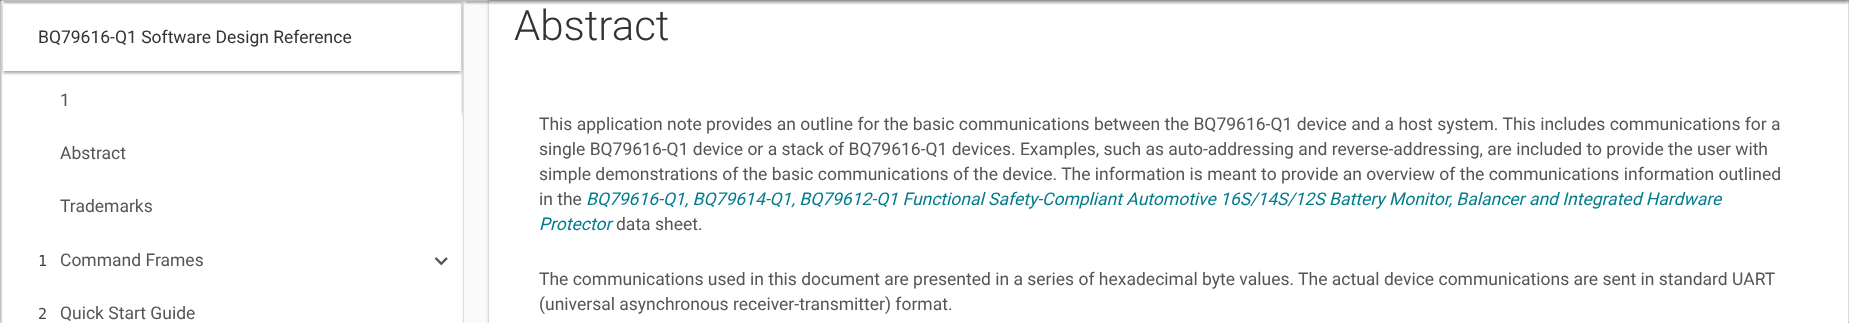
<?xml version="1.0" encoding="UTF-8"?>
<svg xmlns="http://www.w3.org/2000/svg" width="1849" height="323">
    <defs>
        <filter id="blur1" x="-50%" y="-200%" width="200%" height="500%"><feGaussianBlur stdDeviation="31"/></filter>
        <filter id="blur2" x="-50%" y="-200%" width="200%" height="500%"><feGaussianBlur stdDeviation="9.5"/></filter>
        <filter id="blur3" x="-50%" y="-200%" width="200%" height="500%"><feGaussianBlur stdDeviation="1"/></filter>
        <clipPath id="clip1"><rect x="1" y="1" width="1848" height="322" rx="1"/></clipPath>
        <filter id="blur4" x="-50%" y="-200%" width="200%" height="500%"><feGaussianBlur stdDeviation="2"/></filter>
        <clipPath id="clip2"><rect x="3" y="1" width="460" height="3"/></clipPath>
        <clipPath id="clip3"><rect x="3" y="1" width="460" height="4"/></clipPath>
        <clipPath id="clip4"><rect x="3" y="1" width="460" height="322"/></clipPath>
        <clipPath id="clip5"><path d="M 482 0 H 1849 V 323 H 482 Z M 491.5 -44 H 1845.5 C 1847 -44 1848 -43 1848 -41.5 V 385.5 C 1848 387 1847 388 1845.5 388 H 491.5 C 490 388 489 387 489 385.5 V -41.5 C 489 -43 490 -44 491.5 -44 Z" clip-rule="evenodd"/></clipPath>
        <clipPath id="clip6"><rect x="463" y="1" width="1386" height="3"/></clipPath>
        <clipPath id="clip7"><rect x="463" y="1" width="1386" height="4"/></clipPath>
    </defs>
    <rect width="100%" height="100%" fill="#FFFFFF"/>
    <rect x="0" y="0" width="1849" height="3" fill="#808080"/>
    <rect x="0" y="21" width="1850" height="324" rx="2.5" fill="#000000" fill-opacity="0.19" filter="url(#blur1)"/>
    <rect x="0" y="15" width="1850" height="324" rx="2.5" fill="#000000" fill-opacity="0.24" filter="url(#blur2)"/>
    <rect x="0.5" y="0.5" width="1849" height="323" rx="2" fill="#FAFAFA" stroke="#C0C0C0"/>
    <rect x="463" y="1" width="1" height="322" fill="#DDDDDD"/>
    <path d="M 2 1 V 323 C 1.5 323 1 322.5 1 322 V 2 C 1 1.5 1.5 1 2 1 Z" fill="#DDDDDD"/>
    <rect x="3" y="75" width="458" height="248" fill="#FFFFFF"/>
    <rect x="3" y="3" width="458" height="70" rx="2.5" fill="#000000" fill-opacity="0.24" filter="url(#blur3)"/>
    <g clip-path="url(#clip1)">
        <rect x="3" y="3" width="458" height="70" rx="2.5" fill="#000000" fill-opacity="0.12" filter="url(#blur4)"/>
    </g>
    <rect x="3" y="1" width="458" height="70" fill="#FFFFFF"/>
    <g clip-path="url(#clip2)">
        <rect x="3" y="-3" width="460" height="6" fill="#000000" fill-opacity="0.24" filter="url(#blur3)"/>
    </g>
    <g clip-path="url(#clip3)">
        <rect x="3" y="-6" width="460" height="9" fill="#000000" fill-opacity="0.12" filter="url(#blur4)"/>
    </g>
    <text x="38" y="43" font-family="Roboto" font-size="17.5" fill="#333333">BQ79616-Q1 Software Design Reference</text>
    <text x="60" y="106" font-family="Roboto" font-size="17.5" fill="#555555">1</text>
    <text x="60" y="159" font-family="Roboto" font-size="17.5" fill="#555555">Abstract</text>
    <text x="60" y="212" font-family="Roboto" font-size="17.5" fill="#555555">Trademarks</text>
    <text x="38" y="266" font-family="DejaVu Sans Mono" font-size="15" fill="#424242">1</text>
    <text x="60" y="266" font-family="Roboto" font-size="17.5" fill="#555555">Command Frames</text>
    <image x="434" y="257" width="14" height="9" href="img_01.png"/>
    <text x="38" y="319" font-family="DejaVu Sans Mono" font-size="15" fill="#424242">2</text>
    <text x="60" y="319" font-family="Roboto" font-size="17.5" fill="#555555">Quick Start Guide</text>
    <g clip-path="url(#clip4)">
        <rect x="463" y="3" width="458" height="112" rx="2.5" fill="#000000" fill-opacity="0.24" filter="url(#blur3)"/>
        <rect x="463" y="3" width="458" height="112" rx="2.5" fill="#000000" fill-opacity="0.12" filter="url(#blur4)"/>
    </g>
    <rect x="489" y="-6" width="1359" height="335" rx="2.5" fill="#000000" fill-opacity="0.24" filter="url(#blur3)"/>
    <g clip-path="url(#clip5)">
        <rect x="489" y="-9" width="1359" height="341" rx="2.5" fill="#000000" fill-opacity="0.12" filter="url(#blur4)"/>
    </g>
    <rect x="489" y="1" width="1359" height="322" fill="#FFFFFF"/>
    <g clip-path="url(#clip6)">
        <rect x="464" y="-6" width="1385" height="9" rx="2.5" fill="#000000" fill-opacity="0.24" filter="url(#blur3)"/>
    </g>
    <g clip-path="url(#clip7)">
        <rect x="464" y="-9" width="1385" height="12" rx="2.5" fill="#000000" fill-opacity="0.12" filter="url(#blur4)"/>
    </g>
    <text x="514" y="40" font-family="Roboto" font-size="42" font-weight="300" fill="#333333">Abstract</text>
    <text font-family="Roboto" font-size="17.5" fill="#555555">
        <tspan x="539" y="130">This application note provides an outline for the basic communications between the BQ79616-Q1 device and a host system. This includes communications for a</tspan>
        <tspan x="539" y="155">single BQ79616-Q1 device or a stack of BQ79616-Q1 devices. Examples, such as auto-addressing and reverse-addressing, are included to provide the user with</tspan>
        <tspan x="539" y="180">simple demonstrations of the basic communications of the device. The information is meant to provide an overview of the communications information outlined</tspan>
        <tspan x="539" y="205">in the</tspan>
    </text>
    <text x="586" y="205" font-family="Roboto" font-size="17.5" font-style="italic" fill="#007C8C">BQ79616-Q1, BQ79614-Q1, BQ79612-Q1 Functional Safety-Compliant Automotive 16S/14S/12S Battery Monitor, Balancer and Integrated Hardware</text>
    <text x="539" y="230" font-family="Roboto" font-size="17.5" font-style="italic" fill="#007C8C">Protector</text>
    <text x="616" y="230" font-family="Roboto" font-size="17.5" fill="#555555">data sheet.</text>
    <text font-family="Roboto" font-size="17.5" fill="#555555">
        <tspan x="539" y="285">The communications used in this document are presented in a series of hexadecimal byte values. The actual device communications are sent in standard UART</tspan>
        <tspan x="539" y="310">(universal asynchronous receiver-transmitter) format.</tspan>
    </text>
</svg>
